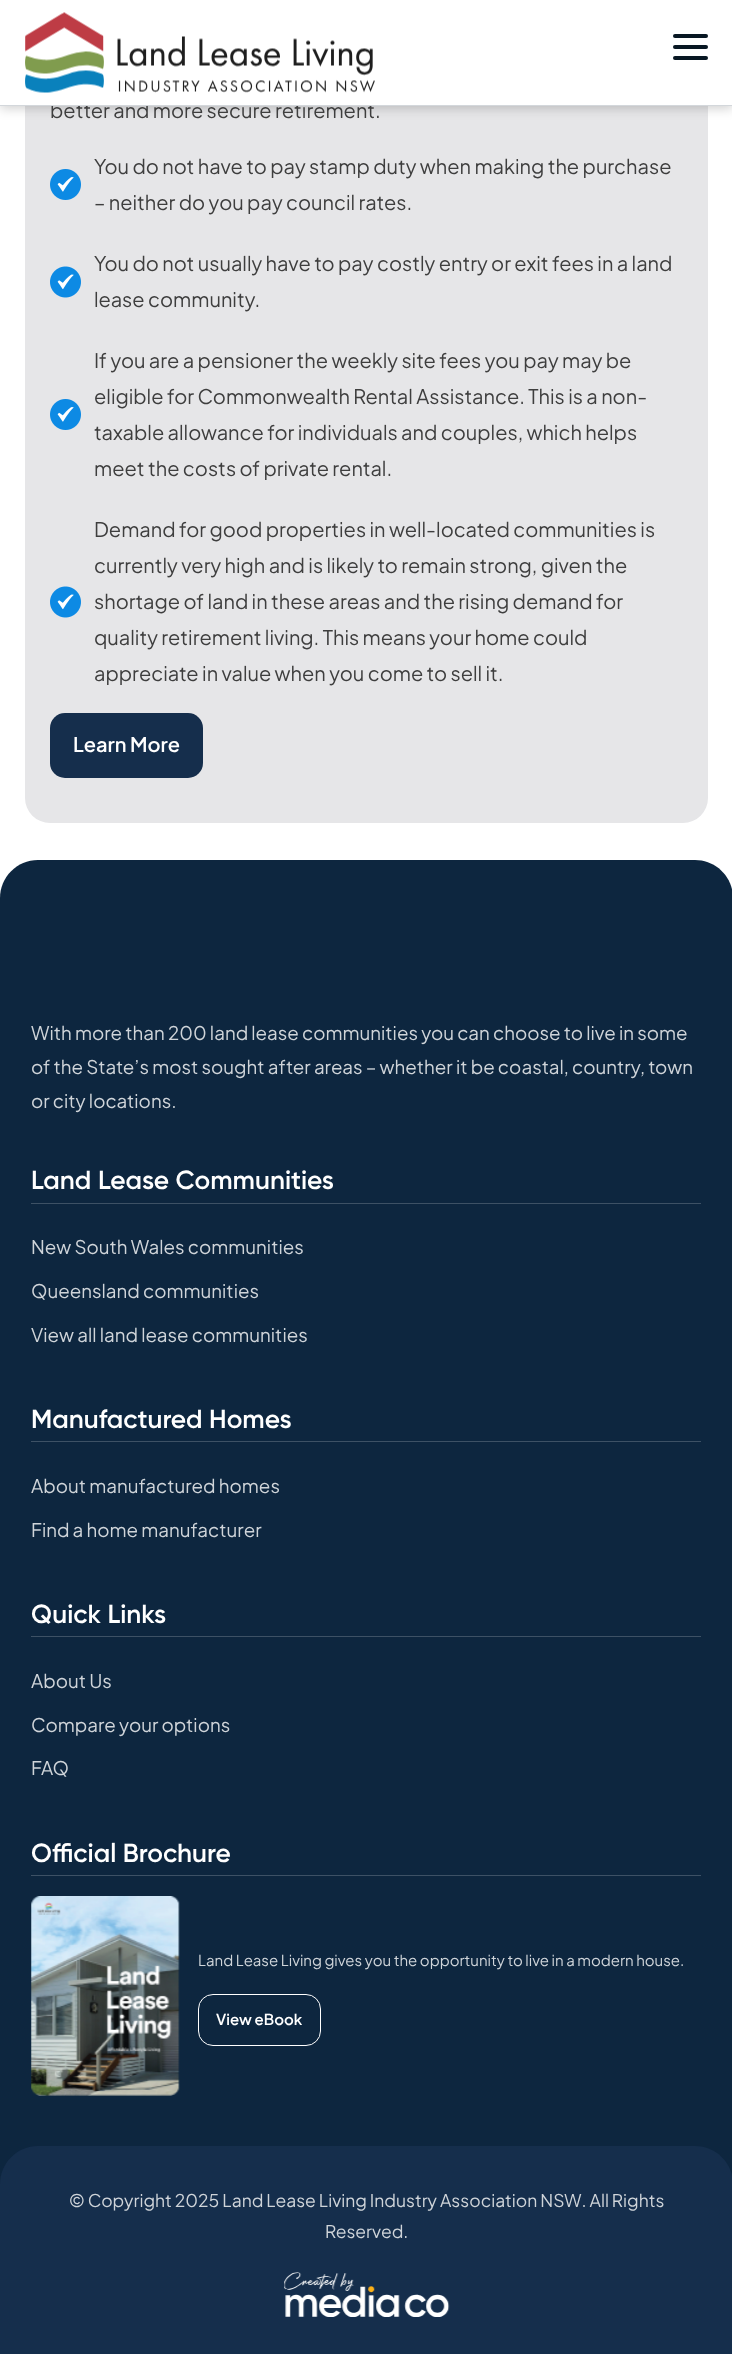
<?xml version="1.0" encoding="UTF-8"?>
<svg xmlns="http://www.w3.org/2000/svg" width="732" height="2354">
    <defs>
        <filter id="blur1" x="-50%" y="-200%" width="200%" height="500%"><feGaussianBlur stdDeviation="6"/></filter>
    </defs>
    <rect width="100%" height="100%" fill="#FFFFFF"/>
    <rect x="25" y="-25" width="683" height="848" rx="25" fill="#E6E6E8"/>
    <rect x="0" y="1" width="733" height="107" fill="#000000" fill-opacity="0.2" filter="url(#blur1)"/>
    <text x="50" y="118" font-family="Plus Jakarta Sans" font-size="20" fill="#3E3E3E">better and more secure retirement.</text>
    <rect x="0" y="0" width="732" height="105" fill="#FFFFFF"/>
    <rect x="0" y="105" width="732" height="1" fill="#D3D7DB"/>
    <image x="25" y="12" width="350" height="81" href="img_01.png"/>
    <rect x="673" y="45" width="35" height="4" rx="2" fill="#081723"/>
    <rect x="673" y="34" width="35" height="4" rx="2" fill="#081723"/>
    <rect x="673" y="56" width="35" height="4" rx="2" fill="#081723"/>
    <image x="50" y="169" width="31" height="31" href="img_02.png"/>
    <text font-family="Plus Jakarta Sans" font-size="20" fill="#3E3E3E">
        <tspan x="94" y="174">You do not have to pay stamp duty when making the purchase</tspan>
        <tspan x="94" y="210">– neither do you pay council rates.</tspan>
    </text>
    <image x="50" y="266" width="31" height="32" href="img_03.png"/>
    <text font-family="Plus Jakarta Sans" font-size="20" fill="#3E3E3E">
        <tspan x="94" y="271">You do not usually have to pay costly entry or exit fees in a land</tspan>
        <tspan x="94" y="307">lease community.</tspan>
    </text>
    <text x="94" y="368" font-family="Plus Jakarta Sans" font-size="20" fill="#3E3E3E">If you are a pensioner the weekly site fees you pay may be</text>
    <image x="50" y="399" width="31" height="31" href="img_02.png"/>
    <text font-family="Plus Jakarta Sans" font-size="20" fill="#3E3E3E">
        <tspan x="94" y="404">eligible for Commonwealth Rental Assistance. This is a non-</tspan>
        <tspan x="94" y="440">taxable allowance for individuals and couples, which helps</tspan>
        <tspan x="94" y="476">meet the costs of private rental.</tspan>
    </text>
    <text font-family="Plus Jakarta Sans" font-size="20" fill="#3E3E3E">
        <tspan x="94" y="537">Demand for good properties in well-located communities is</tspan>
        <tspan x="94" y="573">currently very high and is likely to remain strong, given the</tspan>
    </text>
    <image x="50" y="586" width="31" height="32" href="img_03.png"/>
    <text font-family="Plus Jakarta Sans" font-size="20" fill="#3E3E3E">
        <tspan x="94" y="609">shortage of land in these areas and the rising demand for</tspan>
        <tspan x="94" y="645">quality retirement living. This means your home could</tspan>
        <tspan x="94" y="681">appreciate in value when you come to sell it.</tspan>
    </text>
    <rect x="50" y="713" width="153" height="65" rx="15" fill="#152E4C"/>
    <text x="73" y="752" font-family="Plus Jakarta Sans" font-size="20" font-weight="600" fill="#FFFFFF">Learn More</text>
    <path d="M 38 860 H 695 C 716 860 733 877 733 898 V 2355 H 0 V 898 C 0 877 17 860 38 860 Z" fill="#0D263F"/>
    <text font-family="Plus Jakarta Sans" font-size="18.75" fill="#CFD4D9">
        <tspan x="31" y="1040">With more than 200 land lease communities you can choose to live in some</tspan>
        <tspan x="31" y="1074">of the State’s most sought after areas – whether it be coastal, country, town</tspan>
        <tspan x="31" y="1108">or city locations.</tspan>
    </text>
    <rect x="31" y="1203" width="670" height="1" fill="#3D5165"/>
    <text x="31" y="1189" font-family="Gilroy" font-size="26.25" font-weight="600" fill="#FFFFFF">Land Lease Communities</text>
    <text x="31" y="1254" font-family="Plus Jakarta Sans" font-size="18.75" fill="#CFD4D9">New South Wales communities</text>
    <text x="31" y="1298" font-family="Plus Jakarta Sans" font-size="18.75" fill="#CFD4D9">Queensland communities</text>
    <text x="31" y="1342" font-family="Plus Jakarta Sans" font-size="18.75" fill="#CFD4D9">View all land lease communities</text>
    <rect x="31" y="1441" width="670" height="1" fill="#3D5165"/>
    <text x="31" y="1428" font-family="Gilroy" font-size="26.25" font-weight="600" fill="#FFFFFF">Manufactured Homes</text>
    <text x="31" y="1493" font-family="Plus Jakarta Sans" font-size="18.75" fill="#CFD4D9">About manufactured homes</text>
    <text x="31" y="1537" font-family="Plus Jakarta Sans" font-size="18.75" fill="#CFD4D9">Find a home manufacturer</text>
    <rect x="31" y="1636" width="670" height="1" fill="#3D5165"/>
    <text x="31" y="1623" font-family="Gilroy" font-size="26.25" font-weight="600" fill="#FFFFFF">Quick Links</text>
    <text x="31" y="1688" font-family="Plus Jakarta Sans" font-size="18.75" fill="#CFD4D9">About Us</text>
    <text x="31" y="1732" font-family="Plus Jakarta Sans" font-size="18.75" fill="#CFD4D9">Compare your options</text>
    <text x="31" y="1775" font-family="Plus Jakarta Sans" font-size="18.75" fill="#CFD4D9">FAQ</text>
    <rect x="31" y="1875" width="670" height="1" fill="#3D5165"/>
    <text x="31" y="1862" font-family="Gilroy" font-size="26.25" font-weight="600" fill="#FFFFFF">Official Brochure</text>
    <image x="31" y="1896" width="149" height="200" href="img_04.png"/>
    <text x="198" y="1966" font-family="Plus Jakarta Sans" font-size="15" fill="#CFD4D9">Land Lease Living gives you the opportunity to live in a modern house.</text>
    <rect x="198.5" y="1994.5" width="122" height="51" rx="14.5" fill="none" stroke="#FFFFFF"/>
    <text x="216" y="2025" font-family="Plus Jakarta Sans" font-size="15" font-weight="600" fill="#FFFFFF">View eBook</text>
    <path d="M 38 2146 H 695 C 716 2146 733 2163 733 2184 V 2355 H 0 V 2184 C 0 2163 17 2146 38 2146 Z" fill="#152E4C"/>
    <text x="69" y="2207" font-family="Plus Jakarta Sans" font-size="17.5" fill="#CFD4D9">© Copyright 2025 Land Lease Living Industry Association NSW. All Rights</text>
    <text x="325" y="2238" font-family="Plus Jakarta Sans" font-size="17.5" fill="#CFD4D9">Reserved.</text>
    <image x="284" y="2272" width="166" height="45" href="img_05.png"/>
</svg>
